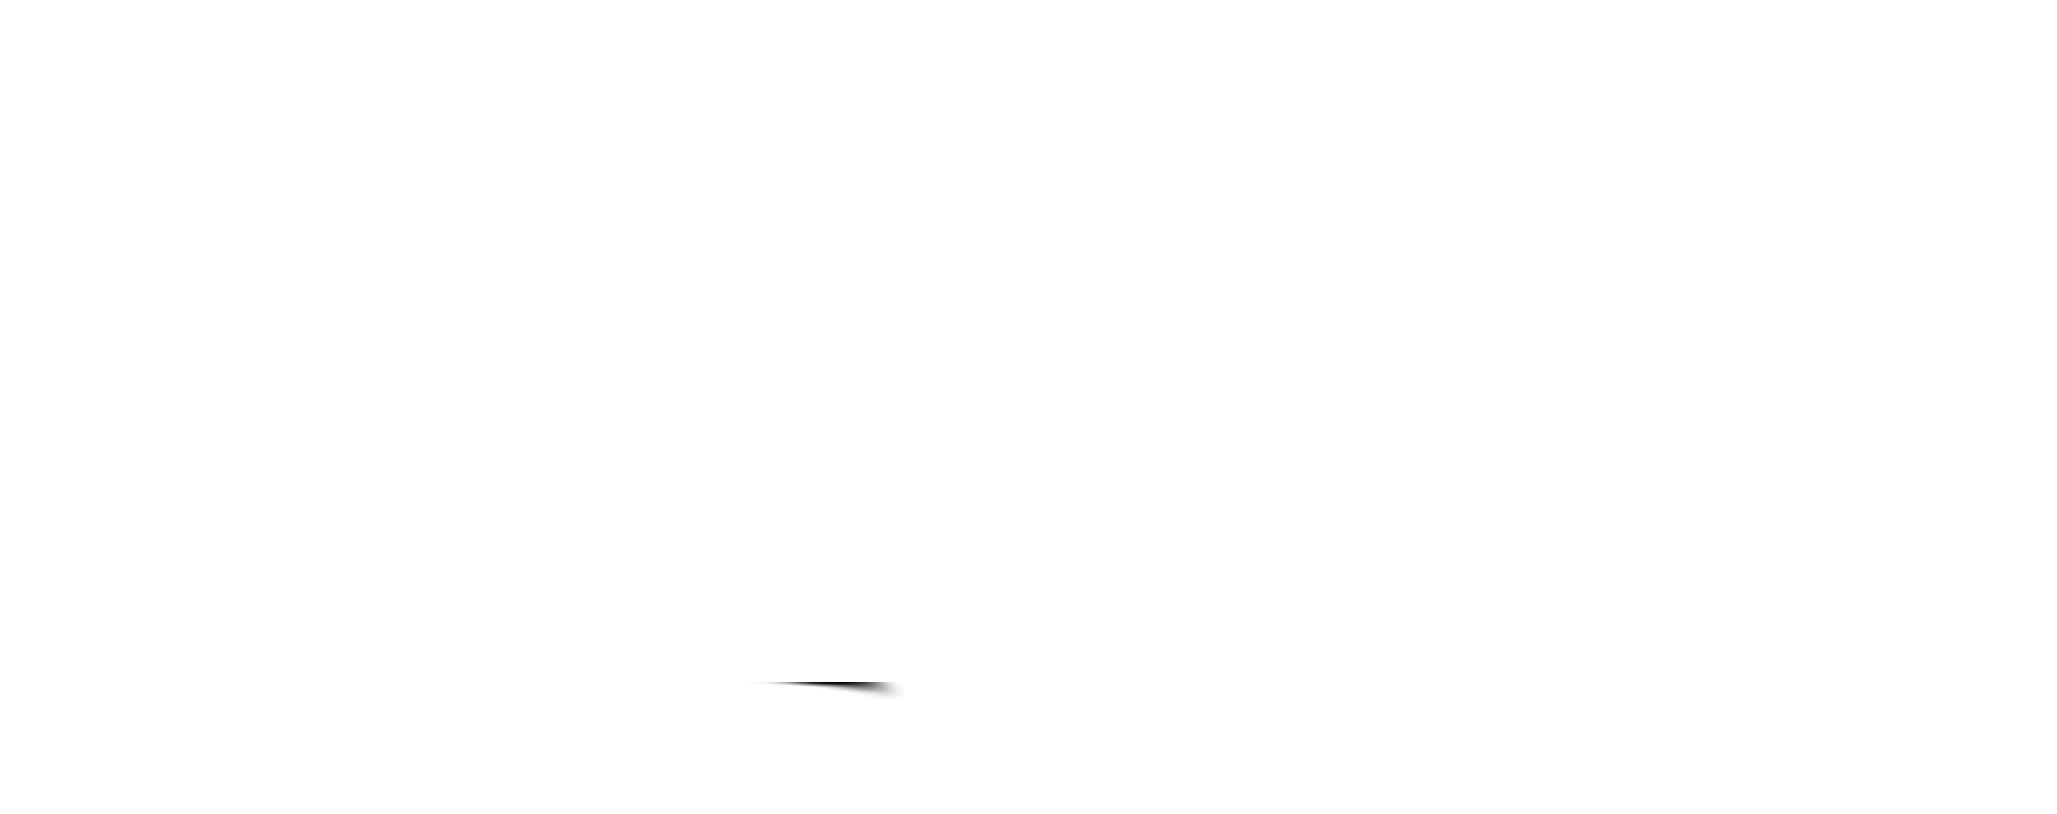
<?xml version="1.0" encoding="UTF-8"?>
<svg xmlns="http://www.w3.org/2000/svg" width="2057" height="814">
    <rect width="100%" height="100%" fill="#FFFFFF"/>
    <image x="750" y="682" width="154" height="18" href="img_01.png"/>
</svg>
